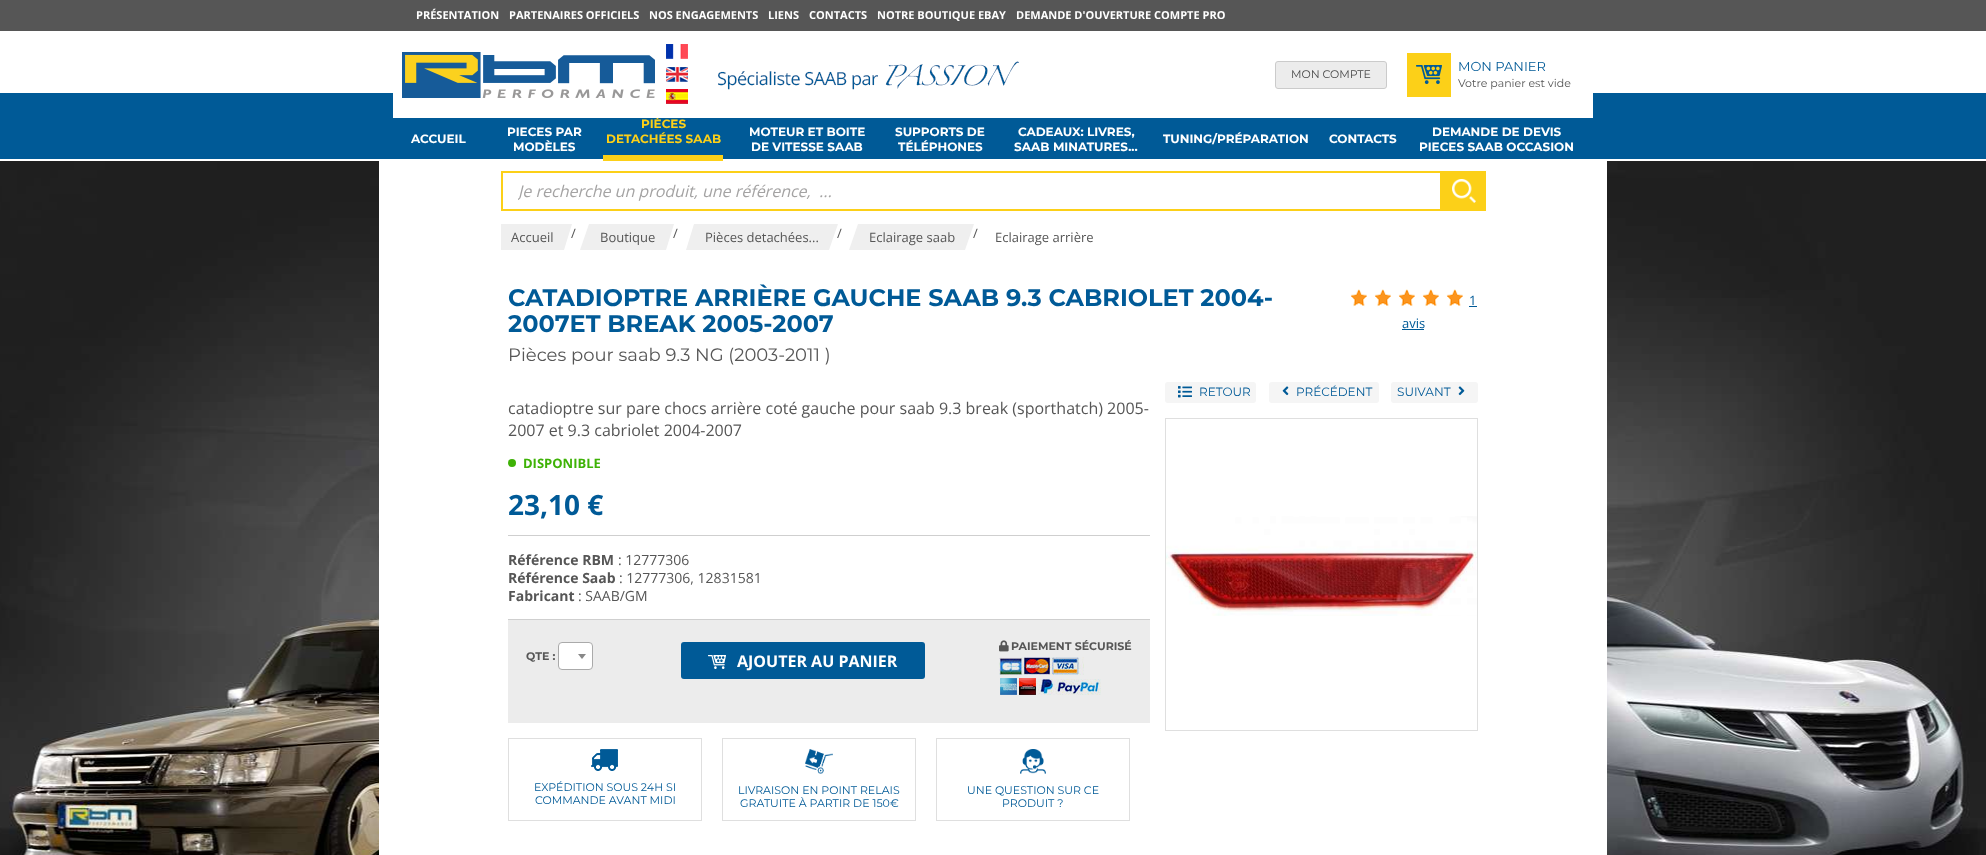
<?xml version="1.0" encoding="UTF-8"?>
<svg xmlns="http://www.w3.org/2000/svg" width="1986" height="855">
    <defs>
        <clipPath id="clip1"><rect x="518" y="180" width="907" height="22"/></clipPath>
    </defs>
    <rect width="100%" height="100%" fill="#FFFFFF"/>
    <image x="0" y="161" width="1986" height="694" href="img_01.png"/>
    <rect x="0" y="0" width="1986" height="31" fill="#565656"/>
    <text x="416" y="19" font-family="Open Sans" font-size="11" font-weight="700" fill="#FFFFFF">PRÉSENTATION</text>
    <text x="509" y="19" font-family="Open Sans" font-size="11" font-weight="700" fill="#FFFFFF">PARTENAIRES OFFICIELS</text>
    <text x="649" y="19" font-family="Open Sans" font-size="11" font-weight="700" fill="#FFFFFF">NOS ENGAGEMENTS</text>
    <text x="768" y="19" font-family="Open Sans" font-size="11" font-weight="700" fill="#FFFFFF">LIENS</text>
    <text x="809" y="19" font-family="Open Sans" font-size="11" font-weight="700" fill="#FFFFFF">CONTACTS</text>
    <text x="877" y="19" font-family="Open Sans" font-size="11" font-weight="700" fill="#FFFFFF">NOTRE BOUTIQUE EBAY</text>
    <text x="1016" y="19" font-family="Open Sans" font-size="11" font-weight="700" fill="#FFFFFF">DEMANDE D'OUVERTURE COMPTE PRO</text>
    <rect x="0" y="118" width="1986" height="41" fill="#005A97"/>
    <text x="641" y="128" font-family="Montserrat" font-size="12" font-weight="700" fill="#FCD018">PIÈCES</text>
    <rect x="0" y="93" width="1986" height="25" fill="#005A97"/>
    <rect x="393" y="93" width="1200" height="25" fill="#FFFFFF"/>
    <image x="402" y="52" width="253" height="46" href="img_02.png"/>
    <image x="666" y="44" width="22" height="15" href="img_03.png"/>
    <image x="666" y="67" width="22" height="15" href="img_04.png"/>
    <image x="666" y="89" width="22" height="15" href="img_05.png"/>
    <image x="718" y="61" width="301" height="29" href="img_06.png"/>
    <rect x="1275.5" y="61.5" width="111" height="27" rx="2.5" fill="#ECECEC" stroke="#CBCBCB"/>
    <text x="1291" y="78" font-family="Montserrat" font-size="11" fill="#4A4A4A">MON COMPTE</text>
    <rect x="1407" y="53" width="44" height="44" fill="#FCD018"/>
    <image x="1416" y="65" width="26" height="19" href="img_07.png"/>
    <text x="1458" y="71" font-family="Montserrat" font-size="13" fill="#005A97">MON PANIER</text>
    <text x="1458" y="87" font-family="Montserrat" font-size="11" fill="#565656">Votre panier est vide</text>
    <text x="411" y="143" font-family="Montserrat" font-size="12" font-weight="700" fill="#FFFFFF">ACCUEIL</text>
    <text x="507" y="136" font-family="Montserrat" font-size="12" font-weight="700" fill="#FFFFFF">PIECES PAR</text>
    <text x="513" y="151" font-family="Montserrat" font-size="12" font-weight="700" fill="#FFFFFF">MODÈLES</text>
    <text x="606" y="143" font-family="Montserrat" font-size="12" font-weight="700" fill="#FCD018">DETACHÉES SAAB</text>
    <rect x="603" y="155" width="120" height="6" fill="#FCD018"/>
    <text x="749" y="136" font-family="Montserrat" font-size="12" font-weight="700" fill="#FFFFFF">MOTEUR ET BOITE</text>
    <text x="751" y="151" font-family="Montserrat" font-size="12" font-weight="700" fill="#FFFFFF">DE VITESSE SAAB</text>
    <text x="895" y="136" font-family="Montserrat" font-size="12" font-weight="700" fill="#FFFFFF">SUPPORTS DE</text>
    <text x="898" y="151" font-family="Montserrat" font-size="12" font-weight="700" fill="#FFFFFF">TÉLÉPHONES</text>
    <text x="1018" y="136" font-family="Montserrat" font-size="12" font-weight="700" fill="#FFFFFF">CADEAUX: LIVRES,</text>
    <text x="1014" y="151" font-family="Montserrat" font-size="12" font-weight="700" fill="#FFFFFF">SAAB MINATURES...</text>
    <text x="1163" y="143" font-family="Montserrat" font-size="12" font-weight="700" fill="#FFFFFF">TUNING/PRÉPARATION</text>
    <text x="1329" y="143" font-family="Montserrat" font-size="12" font-weight="700" fill="#FFFFFF">CONTACTS</text>
    <text x="1432" y="136" font-family="Montserrat" font-size="12" font-weight="700" fill="#FFFFFF">DEMANDE DE DEVIS</text>
    <text x="1419" y="151" font-family="Montserrat" font-size="12" font-weight="700" fill="#FFFFFF">PIECES SAAB OCCASION</text>
    <rect x="379" y="161" width="1228" height="694" fill="#FFFFFF"/>
    <rect x="502" y="172" width="939" height="38" fill="none" stroke="#FCD018" stroke-width="2"/>
    <g clip-path="url(#clip1)">
        <text x="518" y="197" font-family="Open Sans" font-size="16" font-style="italic" fill="#A4A3A3" xml:space="preserve">Je recherche un produit, une référence,  ...</text>
    </g>
    <rect x="1442" y="171" width="44" height="40" fill="#FCD018"/>
    <image x="1452" y="179" width="24" height="24" href="img_08.png"/>
    <rect x="501" y="224" width="9" height="26" fill="#EFEFEF"/>
    <text x="571" y="238" font-family="Open Sans" font-size="13" fill="#565656">/</text>
    <path d="M 510 224 H 572 L 564 250 H 501 Z" fill="#EFEFEF"/>
    <text x="511" y="242" font-family="Open Sans" font-size="13" fill="#565656">Accueil</text>
    <text x="673" y="238" font-family="Open Sans" font-size="13" fill="#565656">/</text>
    <path d="M 589 224 H 674 L 666 250 H 580 Z" fill="#EFEFEF"/>
    <text x="600" y="242" font-family="Open Sans" font-size="13" fill="#565656">Boutique</text>
    <text x="837" y="238" font-family="Open Sans" font-size="13" fill="#565656">/</text>
    <path d="M 694 224 H 838 L 829 250 H 686 Z" fill="#EFEFEF"/>
    <text x="705" y="242" font-family="Open Sans" font-size="13" fill="#565656">Pièces detachées...</text>
    <text x="973" y="238" font-family="Open Sans" font-size="13" fill="#565656">/</text>
    <path d="M 858 224 H 974 L 965 250 H 849 Z" fill="#EFEFEF"/>
    <text x="869" y="242" font-family="Open Sans" font-size="13" fill="#565656">Eclairage saab</text>
    <text x="995" y="242" font-family="Open Sans" font-size="13" fill="#565656">Eclairage arrière</text>
    <text font-family="Montserrat" font-size="24" font-weight="700" fill="#005A97">
        <tspan x="508" y="306">CATADIOPTRE ARRIÈRE GAUCHE SAAB 9.3 CABRIOLET 2004-</tspan>
        <tspan x="508" y="332">2007ET BREAK 2005-2007</tspan>
    </text>
    <image x="1350" y="289" width="17" height="18" href="img_09.png"/>
    <image x="1374" y="289" width="17" height="18" href="img_09.png"/>
    <image x="1398" y="289" width="17" height="18" href="img_09.png"/>
    <image x="1422" y="289" width="17" height="18" href="img_09.png"/>
    <image x="1446" y="289" width="17" height="18" href="img_09.png"/>
    <text x="1469" y="305" font-family="Open Sans" font-size="13" fill="#005A97">1</text>
    <rect x="1469" y="306" width="8" height="1" fill="#005A97"/>
    <text x="1402" y="328" font-family="Open Sans" font-size="13" fill="#005A97">avis</text>
    <rect x="1402" y="329" width="22" height="1" fill="#005A97"/>
    <text x="508" y="361" font-family="Montserrat" font-size="18" fill="#565656">Pièces pour saab 9.3 NG (2003-2011 )</text>
    <rect x="1165" y="382" width="91" height="21" rx="3" fill="#F5F5F5"/>
    <image x="1178" y="386" width="14" height="12" href="img_10.png"/>
    <text x="1199" y="396" font-family="Montserrat" font-size="12" fill="#005A97">RETOUR</text>
    <rect x="1269" y="382" width="110" height="21" rx="3" fill="#F5F5F5"/>
    <image x="1282" y="386" width="7" height="10" href="img_11.png"/>
    <text x="1296" y="396" font-family="Montserrat" font-size="12" fill="#005A97">PRÉCÉDENT</text>
    <rect x="1391" y="382" width="87" height="21" rx="3" fill="#F5F5F5"/>
    <text x="1397" y="396" font-family="Montserrat" font-size="12" fill="#005A97">SUIVANT</text>
    <image x="1458" y="386" width="7" height="10" href="img_12.png"/>
    <rect x="1165.5" y="418.5" width="312" height="312" fill="none" stroke="#DFDFDF"/>
    <image x="1166" y="516" width="311" height="100" href="img_13.png"/>
    <text font-family="Open Sans" font-size="16" fill="#565656">
        <tspan x="508" y="414">catadioptre sur pare chocs arrière coté gauche pour saab 9.3 break (sporthatch) 2005-</tspan>
        <tspan x="508" y="436">2007 et 9.3 cabriolet 2004-2007</tspan>
    </text>
    <circle cx="512" cy="463" r="4" fill="#3EB206"/>
    <text x="523" y="468" font-family="Open Sans" font-size="13" font-weight="700" fill="#3EB206">DISPONIBLE</text>
    <rect x="508" y="535" width="642" height="1" fill="#CFCFCF"/>
    <text x="508" y="515" font-family="Open Sans" font-size="28" font-weight="700" fill="#005A97">23,10 €</text>
    <text x="508" y="565" font-family="Open Sans" font-size="14" font-weight="700" fill="#565656">Référence RBM</text>
    <text x="618" y="565" font-family="Open Sans" font-size="14" fill="#565656">: 12777306</text>
    <text x="508" y="583" font-family="Open Sans" font-size="14" font-weight="700" fill="#565656">Référence Saab</text>
    <text x="619" y="583" font-family="Open Sans" font-size="14" fill="#565656">: 12777306, 12831581</text>
    <text x="508" y="601" font-family="Open Sans" font-size="14" font-weight="700" fill="#565656">Fabricant</text>
    <text x="578" y="601" font-family="Open Sans" font-size="14" fill="#565656">: SAAB/GM</text>
    <rect x="508" y="620" width="642" height="103" fill="#ECECEC"/>
    <rect x="508" y="619" width="642" height="1" fill="#CFCFCF"/>
    <image x="999" y="640" width="10" height="12" href="img_14.png"/>
    <text x="1011" y="650" font-family="Montserrat" font-size="11" font-weight="700" fill="#565656">PAIEMENT SÉCURISÉ</text>
    <image x="999" y="657" width="102" height="38" href="img_15.png"/>
    <text x="526" y="660" font-family="Montserrat" font-size="11" font-weight="700" fill="#565656">QTE :</text>
    <rect x="558.5" y="642.5" width="34" height="27" rx="3.5" fill="#FFFFFF" stroke="#AAAAAA"/>
    <path d="M 578 654 H 586 L 582 659 Z" fill="#888888"/>
    <rect x="681" y="642" width="244" height="37" rx="3" fill="#005A97"/>
    <image x="708" y="655" width="18" height="14" href="img_16.png"/>
    <text x="737" y="667" font-family="Open Sans" font-size="16" font-weight="700" fill="#FFFFFF">AJOUTER AU PANIER</text>
    <rect x="508.5" y="738.5" width="193" height="82" fill="none" stroke="#DFDFDF"/>
    <image x="591" y="749" width="27" height="22" href="img_17.png"/>
    <text x="534" y="791" font-family="Montserrat" font-size="11" fill="#005A97">EXPÉDITION SOUS 24H SI</text>
    <text x="535" y="804" font-family="Montserrat" font-size="11" fill="#005A97">COMMANDE AVANT MIDI</text>
    <rect x="722.5" y="738.5" width="193" height="82" fill="none" stroke="#DFDFDF"/>
    <image x="805" y="749" width="28" height="25" href="img_18.png"/>
    <text x="738" y="794" font-family="Montserrat" font-size="11" fill="#005A97">LIVRAISON EN POINT RELAIS</text>
    <text x="740" y="807" font-family="Montserrat" font-size="11" fill="#005A97">GRATUITE À PARTIR DE 150€</text>
    <rect x="936.5" y="738.5" width="193" height="82" fill="none" stroke="#DFDFDF"/>
    <image x="1020" y="749" width="26" height="25" href="img_19.png"/>
    <text x="967" y="794" font-family="Montserrat" font-size="11" fill="#005A97">UNE QUESTION SUR CE</text>
    <text x="1002" y="807" font-family="Montserrat" font-size="11" fill="#005A97">PRODUIT ?</text>
</svg>
